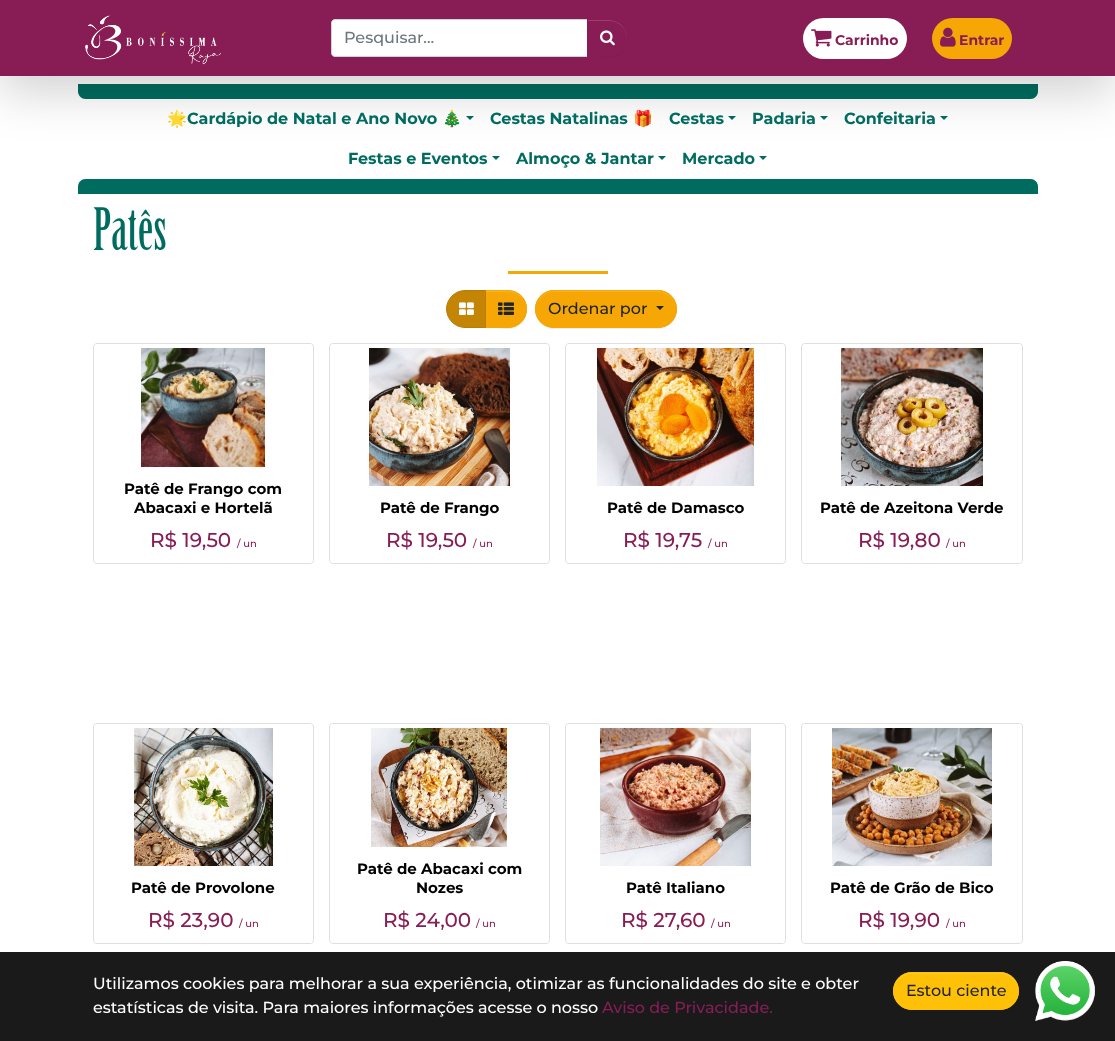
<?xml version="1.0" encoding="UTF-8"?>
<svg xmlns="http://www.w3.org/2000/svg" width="1115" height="1041">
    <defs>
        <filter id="blur1" x="-50%" y="-200%" width="200%" height="500%"><feGaussianBlur stdDeviation="24"/></filter>
        <filter id="blur2" x="-50%" y="-200%" width="200%" height="500%"><feGaussianBlur stdDeviation="0.5"/></filter>
    </defs>
    <rect width="100%" height="100%" fill="#FFFFFF"/>
    <path d="M 78 84 H 1038 V 91.5 C 1038 95.5 1034.5 99 1030.5 99 H 85.5 C 81.5 99 78 95.5 78 91.5 Z" fill="#006C60"/>
    <path d="M 466 116 H 474 L 470 120 Z" fill="#006C60"/>
    <path d="M 728 116 H 736 L 732 120 Z" fill="#006C60"/>
    <path d="M 820 116 H 828 L 824 120 Z" fill="#006C60"/>
    <path d="M 940 116 H 948 L 944 120 Z" fill="#006C60"/>
    <path d="M 492 156 H 500 L 496 160 Z" fill="#006C60"/>
    <path d="M 658 156 H 666 L 662 160 Z" fill="#006C60"/>
    <path d="M 759 156 H 767 L 763 160 Z" fill="#006C60"/>
    <rect x="0" y="16" width="1115" height="76" fill="#000000" fill-opacity="0.18" filter="url(#blur1)"/>
    <rect x="0" y="0" width="1115" height="76" fill="#881D55"/>
    <image x="85" y="15" width="136" height="50" href="img_01.png"/>
    <path d="M 335 19.5 H 587.5 V 56.5 H 335 C 333 56.5 331.5 55 331.5 53 V 23 C 331.5 21 333 19.5 335 19.5 Z" fill="#FFFFFF" stroke="#CED4DA"/>
    <text x="344" y="43" font-family="Montserrat" font-size="16" font-weight="500" fill="#6C757D">Pesquisar...</text>
    <rect x="587" y="20" width="41" height="38" rx="19" fill="#000000" fill-opacity="0.07" filter="url(#blur2)"/>
    <path d="M 587 19 H 609 C 619.5 19 628 27.5 628 38 C 628 48.5 619.5 57 609 57 H 587 Z" fill="#881D55"/>
    <path d="M 588 21 H 609 C 619 21 626.5 28.5 627 38.5 V 38 C 627 28 619 20 609 20 H 588 Z" fill="#9A3F6F"/>
    <path d="M 587.5 19.5 H 609 C 619 19.5 627.5 28 627.5 38 C 627.5 48 619 56.5 609 56.5 H 587.5 Z" fill="none" stroke="#881D55"/>
    <image x="600" y="30" width="15" height="16" href="img_02.png"/>
    <rect x="803" y="18" width="104" height="41" rx="20.5" fill="#FFFFFF"/>
    <image x="811" y="29" width="21" height="18" href="img_03.png"/>
    <text x="835" y="45" font-family="Montserrat" font-size="14" font-weight="700" fill="#881D55">Carrinho</text>
    <rect x="932" y="18" width="80" height="41" rx="20.5" fill="#F6A705"/>
    <image x="940" y="27" width="16" height="20" href="img_04.png"/>
    <text x="959" y="45" font-family="Montserrat" font-size="14" font-weight="700" fill="#881D55">Entrar</text>
    <text x="167" y="124" font-family="Noto Color Emoji" font-size="16" font-weight="700" fill="#006C60">🌟</text>
    <text x="187" y="124" font-family="Montserrat" font-size="16" font-weight="700" fill="#006C60">Cardápio de Natal e Ano Novo</text>
    <text x="442" y="124" font-family="Noto Color Emoji" font-size="16" font-weight="700" fill="#006C60">🎄</text>
    <text x="490" y="124" font-family="Montserrat" font-size="16" font-weight="700" fill="#006C60">Cestas Natalinas</text>
    <text x="633" y="124" font-family="Noto Color Emoji" font-size="16" font-weight="700" fill="#006C60">🎁</text>
    <text x="669" y="124" font-family="Montserrat" font-size="16" font-weight="700" fill="#006C60">Cestas</text>
    <text x="752" y="124" font-family="Montserrat" font-size="16" font-weight="700" fill="#006C60">Padaria</text>
    <text x="844" y="124" font-family="Montserrat" font-size="16" font-weight="700" fill="#006C60">Confeitaria</text>
    <text x="348" y="164" font-family="Montserrat" font-size="16" font-weight="700" fill="#006C60">Festas e Eventos</text>
    <text x="516" y="164" font-family="Montserrat" font-size="16" font-weight="700" fill="#006C60">Almoço &amp; Jantar</text>
    <text x="682" y="164" font-family="Montserrat" font-size="16" font-weight="700" fill="#006C60">Mercado</text>
    <path d="M 85.5 179 H 1030.5 C 1034.5 179 1038 182.5 1038 186.5 V 194 H 78 V 186.5 C 78 182.5 81.5 179 85.5 179 Z" fill="#006C60"/>
    <text x="93" y="250" font-family="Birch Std" font-size="57" fill="#006C60">Patês</text>
    <rect x="508" y="271" width="100" height="3" fill="#F6A705"/>
    <rect x="485" y="291" width="42" height="38" rx="19" fill="#000000" fill-opacity="0.07" filter="url(#blur2)"/>
    <path d="M 485 290 H 508 C 518.5 290 527 298.5 527 309 C 527 319.5 518.5 328 508 328 H 485 Z" fill="#F6A705"/>
    <path d="M 486 292 H 508 C 518 292 526 300 526 309 C 526 301 520 293 512 291 H 486 Z" fill="#F7B42B"/>
    <path d="M 485.5 290.5 H 508 C 518 290.5 526.5 299 526.5 309 C 526.5 319 518 327.5 508 327.5 H 485.5 Z" fill="none" stroke="#F6A705"/>
    <path d="M 465 290.5 H 485.5 V 327.5 H 465 C 455 327.5 446.5 319 446.5 309 C 446.5 299 455 290.5 465 290.5 Z" fill="#C48504" stroke="#B87D04"/>
    <image x="459" y="302" width="15" height="13" href="img_05.png"/>
    <image x="498" y="302" width="16" height="13" href="img_06.png"/>
    <rect x="535" y="291" width="142" height="38" rx="19" fill="#000000" fill-opacity="0.07" filter="url(#blur2)"/>
    <rect x="535" y="290" width="142" height="38" rx="19" fill="#F6A705"/>
    <path d="M 554 292 H 658 C 668 292 676 300 676 309 C 676 299 668 291 658 291 H 554 C 544 291 536 299 536 309 C 536 300 544 292 554 292 Z" fill="#F7B42B"/>
    <rect x="535.5" y="290.5" width="141" height="37" rx="18.5" fill="none" stroke="#F6A705"/>
    <text x="548" y="314" font-family="Montserrat" font-size="16" font-weight="500" fill="#212529">Ordenar por</text>
    <path d="M 656 306 H 664 L 660 310 Z" fill="#212529"/>
    <rect x="93.5" y="343.5" width="220" height="220" rx="3.5" fill="none" stroke="#DFDFDF"/>
    <path d="M 97 344 H 310 C 311.5 344 313 345.5 313 347 V 471 H 94 V 347 C 94 345.5 95.5 344 97 344 Z" fill="#FFFFFF" fill-opacity="0.9"/>
    <image x="141" y="348" width="124" height="119" href="img_07.png"/>
    <path d="M 94 471 H 313 V 560 C 313 561.5 311.5 563 310 563 H 97 C 95.5 563 94 561.5 94 560 Z" fill="#FFFFFF" fill-opacity="0.9"/>
    <text x="124" y="494" font-family="Montserrat" font-size="15" font-weight="700" fill="#000000">Patê de Frango com</text>
    <text x="134" y="513" font-family="Montserrat" font-size="15" font-weight="700" fill="#000000">Abacaxi e Hortelã</text>
    <text x="150" y="547" font-family="Montserrat" font-size="20" font-weight="500" fill="#881D55">R$ 19,50</text>
    <text x="237" y="547" font-family="Montserrat" font-size="10" font-weight="500" fill="#881D55">/ un</text>
    <rect x="329.5" y="343.5" width="220" height="220" rx="3.5" fill="none" stroke="#DFDFDF"/>
    <path d="M 333 344 H 546 C 547.5 344 549 345.5 549 347 V 490 H 330 V 347 C 330 345.5 331.5 344 333 344 Z" fill="#FFFFFF" fill-opacity="0.9"/>
    <image x="369" y="348" width="141" height="138" href="img_08.png"/>
    <path d="M 330 490 H 549 V 560 C 549 561.5 547.5 563 546 563 H 333 C 331.5 563 330 561.5 330 560 Z" fill="#FFFFFF" fill-opacity="0.9"/>
    <text x="380" y="513" font-family="Montserrat" font-size="15" font-weight="700" fill="#000000">Patê de Frango</text>
    <text x="386" y="547" font-family="Montserrat" font-size="20" font-weight="500" fill="#881D55">R$ 19,50</text>
    <text x="473" y="547" font-family="Montserrat" font-size="10" font-weight="500" fill="#881D55">/ un</text>
    <rect x="565.5" y="343.5" width="220" height="220" rx="3.5" fill="none" stroke="#DFDFDF"/>
    <path d="M 569 344 H 782 C 783.5 344 785 345.5 785 347 V 490 H 566 V 347 C 566 345.5 567.5 344 569 344 Z" fill="#FFFFFF" fill-opacity="0.9"/>
    <image x="597" y="348" width="157" height="138" href="img_09.png"/>
    <path d="M 566 490 H 785 V 560 C 785 561.5 783.5 563 782 563 H 569 C 567.5 563 566 561.5 566 560 Z" fill="#FFFFFF" fill-opacity="0.9"/>
    <text x="607" y="513" font-family="Montserrat" font-size="15" font-weight="700" fill="#000000">Patê de Damasco</text>
    <text x="623" y="547" font-family="Montserrat" font-size="20" font-weight="500" fill="#881D55">R$ 19,75</text>
    <text x="708" y="547" font-family="Montserrat" font-size="10" font-weight="500" fill="#881D55">/ un</text>
    <rect x="801.5" y="343.5" width="221" height="220" rx="3.5" fill="none" stroke="#DFDFDF"/>
    <path d="M 805 344 H 1019 C 1020.5 344 1022 345.5 1022 347 V 490 H 802 V 347 C 802 345.5 803.5 344 805 344 Z" fill="#FFFFFF" fill-opacity="0.9"/>
    <image x="841" y="348" width="142" height="138" href="img_10.png"/>
    <path d="M 802 490 H 1022 V 560 C 1022 561.5 1020.5 563 1019 563 H 805 C 803.5 563 802 561.5 802 560 Z" fill="#FFFFFF" fill-opacity="0.9"/>
    <text x="820" y="513" font-family="Montserrat" font-size="15" font-weight="700" fill="#000000">Patê de Azeitona Verde</text>
    <text x="858" y="547" font-family="Montserrat" font-size="20" font-weight="500" fill="#881D55">R$ 19,80</text>
    <text x="946" y="547" font-family="Montserrat" font-size="10" font-weight="500" fill="#881D55">/ un</text>
    <rect x="93.5" y="723.5" width="220" height="220" rx="3.5" fill="none" stroke="#DFDFDF"/>
    <path d="M 97 724 H 310 C 311.5 724 313 725.5 313 727 V 870 H 94 V 727 C 94 725.5 95.5 724 97 724 Z" fill="#FFFFFF" fill-opacity="0.9"/>
    <image x="134" y="728" width="139" height="138" href="img_11.png"/>
    <path d="M 94 870 H 313 V 940 C 313 941.5 311.5 943 310 943 H 97 C 95.5 943 94 941.5 94 940 Z" fill="#FFFFFF" fill-opacity="0.9"/>
    <text x="131" y="893" font-family="Montserrat" font-size="15" font-weight="700" fill="#000000">Patê de Provolone</text>
    <text x="148" y="927" font-family="Montserrat" font-size="20" font-weight="500" fill="#881D55">R$ 23,90</text>
    <text x="239" y="927" font-family="Montserrat" font-size="10" font-weight="500" fill="#881D55">/ un</text>
    <rect x="329.5" y="723.5" width="220" height="220" rx="3.5" fill="none" stroke="#DFDFDF"/>
    <path d="M 333 724 H 546 C 547.5 724 549 725.5 549 727 V 851 H 330 V 727 C 330 725.5 331.5 724 333 724 Z" fill="#FFFFFF" fill-opacity="0.9"/>
    <image x="371" y="728" width="136" height="119" href="img_12.png"/>
    <path d="M 330 851 H 549 V 940 C 549 941.5 547.5 943 546 943 H 333 C 331.5 943 330 941.5 330 940 Z" fill="#FFFFFF" fill-opacity="0.9"/>
    <text x="357" y="874" font-family="Montserrat" font-size="15" font-weight="700" fill="#000000">Patê de Abacaxi com</text>
    <text x="416" y="893" font-family="Montserrat" font-size="15" font-weight="700" fill="#000000">Nozes</text>
    <text x="383" y="927" font-family="Montserrat" font-size="20" font-weight="500" fill="#881D55">R$ 24,00</text>
    <text x="476" y="927" font-family="Montserrat" font-size="10" font-weight="500" fill="#881D55">/ un</text>
    <rect x="565.5" y="723.5" width="220" height="220" rx="3.5" fill="none" stroke="#DFDFDF"/>
    <path d="M 569 724 H 782 C 783.5 724 785 725.5 785 727 V 870 H 566 V 727 C 566 725.5 567.5 724 569 724 Z" fill="#FFFFFF" fill-opacity="0.9"/>
    <image x="600" y="728" width="151" height="138" href="img_13.png"/>
    <path d="M 566 870 H 785 V 940 C 785 941.5 783.5 943 782 943 H 569 C 567.5 943 566 941.5 566 940 Z" fill="#FFFFFF" fill-opacity="0.9"/>
    <text x="626" y="893" font-family="Montserrat" font-size="15" font-weight="700" fill="#000000">Patê Italiano</text>
    <text x="621" y="927" font-family="Montserrat" font-size="20" font-weight="500" fill="#881D55">R$ 27,60</text>
    <text x="711" y="927" font-family="Montserrat" font-size="10" font-weight="500" fill="#881D55">/ un</text>
    <rect x="801.5" y="723.5" width="221" height="220" rx="3.5" fill="none" stroke="#DFDFDF"/>
    <path d="M 805 724 H 1019 C 1020.5 724 1022 725.5 1022 727 V 870 H 802 V 727 C 802 725.5 803.5 724 805 724 Z" fill="#FFFFFF" fill-opacity="0.9"/>
    <image x="832" y="728" width="160" height="138" href="img_14.png"/>
    <path d="M 802 870 H 1022 V 940 C 1022 941.5 1020.5 943 1019 943 H 805 C 803.5 943 802 941.5 802 940 Z" fill="#FFFFFF" fill-opacity="0.9"/>
    <text x="830" y="893" font-family="Montserrat" font-size="15" font-weight="700" fill="#000000">Patê de Grão de Bico</text>
    <text x="858" y="927" font-family="Montserrat" font-size="20" font-weight="500" fill="#881D55">R$ 19,90</text>
    <text x="946" y="927" font-family="Montserrat" font-size="10" font-weight="500" fill="#881D55">/ un</text>
    <rect x="0" y="952" width="1115" height="89" fill="#1A1A1A"/>
    <text font-family="Montserrat" font-size="16" font-weight="500" fill="#FFFFFF">
        <tspan x="93" y="989">Utilizamos cookies para melhorar a sua experiência, otimizar as funcionalidades do site e obter</tspan>
        <tspan x="93" y="1013">estatísticas de visita. Para maiores informações acesse o nosso</tspan>
    </text>
    <text x="602" y="1013" font-family="Montserrat" font-size="16" font-weight="500" fill="#881D55">Aviso de Privacidade.</text>
    <rect x="893" y="972" width="126" height="38" rx="19" fill="#FFC107"/>
    <path d="M 912 974 H 1000 C 1010 974 1018 982 1018 991 C 1018 981 1010 973 1000 973 H 912 C 902 973 894 981 894 991 C 894 982 902 974 912 974 Z" fill="#FFCA2C"/>
    <rect x="893.5" y="972.5" width="125" height="37" rx="18.5" fill="none" stroke="#FFC107"/>
    <text x="906" y="996" font-family="Montserrat" font-size="16" font-weight="500" fill="#212529">Estou ciente</text>
    <image x="1035" y="961" width="60" height="60" href="img_15.png"/>
</svg>
